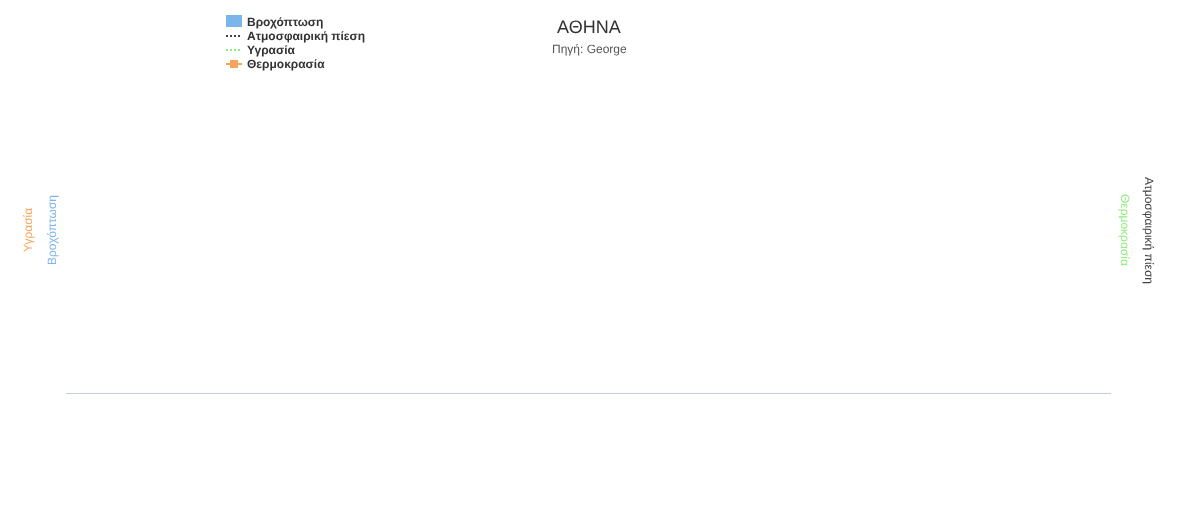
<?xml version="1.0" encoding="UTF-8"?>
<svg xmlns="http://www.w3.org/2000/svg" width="1177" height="519">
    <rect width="100%" height="100%" fill="#FFFFFF"/>
    <image x="66" y="15" width="1045" height="379" href="img_01.png"/>
    <text x="247" y="26" font-family="Liberation Sans" font-size="12" font-weight="700" fill="#333333">Βροχόπτωση</text>
    <text x="557" y="33" font-family="Liberation Sans" font-size="18" fill="#333333">ΑΘΗΝΑ</text>
    <text font-family="Liberation Sans" font-size="12" font-weight="700" fill="#333333">
        <tspan x="247" y="40">Ατμοσφαιρική πίεση</tspan>
        <tspan x="247" y="54">Υγρασία</tspan>
    </text>
    <text x="552" y="53" font-family="Liberation Sans" font-size="12" fill="#555555">Πηγή: George</text>
    <text x="247" y="68" font-family="Liberation Sans" font-size="12" font-weight="700" fill="#333333">Θερμοκρασία</text>
    <text x="32" y="252" transform="rotate(-90 32 252)" font-family="Liberation Sans" font-size="12" fill="#F7A35C">Υγρασία</text>
    <text x="56" y="265" transform="rotate(-90 56 265)" font-family="Liberation Sans" font-size="12" fill="#7CB5EC">Βροχόπτωση</text>
    <text x="1121" y="194" transform="rotate(90 1121 194)" font-family="Liberation Sans" font-size="12" fill="#90ED7D">Θερμοκρασία</text>
    <text x="1145" y="177" transform="rotate(90 1145 177)" font-family="Liberation Sans" font-size="12" fill="#434348">Ατμοσφαιρική πίεση</text>
</svg>
